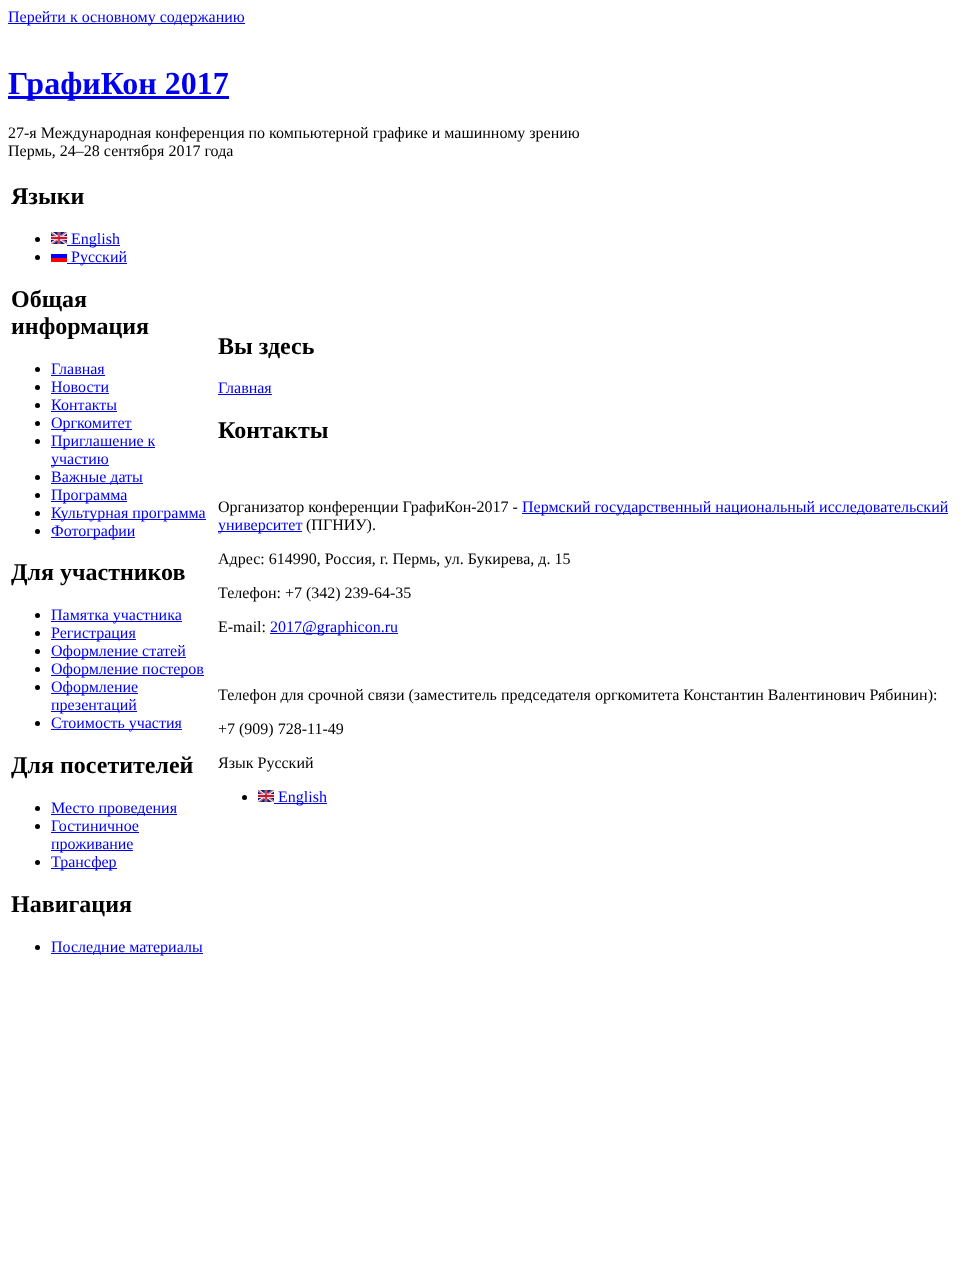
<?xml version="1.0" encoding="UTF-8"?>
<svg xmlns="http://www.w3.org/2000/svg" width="963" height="1284">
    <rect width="100%" height="100%" fill="#FFFFFF"/>
    <rect x="8" y="23" width="237" height="1" fill="#0000EE"/>
    <text x="8" y="22" font-family="Liberation Serif" font-size="16" fill="#0000EE">Перейти к основному содержанию</text>
    <rect x="8" y="96" width="221" height="3" fill="#0000EE"/>
    <text x="8" y="94" font-family="Liberation Serif" font-size="32" font-weight="700" fill="#0000EE">ГрафиКон 2017</text>
    <text font-family="Liberation Serif" font-size="16" fill="#000000">
        <tspan x="8" y="138">27-я Международная конференция по компьютерной графике и машинному зрению</tspan>
        <tspan x="8" y="156">Пермь, 24–28 сентября 2017 года</tspan>
    </text>
    <text x="11" y="204" font-family="Liberation Serif" font-size="24" font-weight="700" fill="#000000">Языки</text>
    <circle cx="37.5" cy="239.5" r="2.5" fill="#000000"/>
    <image x="51" y="232" width="16" height="12" href="img_01.png"/>
    <rect x="67" y="245" width="53" height="1" fill="#0000EE"/>
    <text x="71" y="244" font-family="Liberation Serif" font-size="16" fill="#0000EE">English</text>
    <circle cx="37.5" cy="257.5" r="2.5" fill="#000000"/>
    <image x="51" y="254" width="16" height="8" href="img_02.png"/>
    <rect x="67" y="263" width="60" height="1" fill="#0000EE"/>
    <text x="71" y="262" font-family="Liberation Serif" font-size="16" fill="#0000EE">Русский</text>
    <text font-family="Liberation Serif" font-size="24" font-weight="700" fill="#000000">
        <tspan x="11" y="307">Общая</tspan>
        <tspan x="11" y="334">информация</tspan>
    </text>
    <circle cx="37.5" cy="369.5" r="2.5" fill="#000000"/>
    <text x="51" y="374" font-family="Liberation Serif" font-size="16" fill="#0000EE">Главная</text>
    <rect x="51" y="375" width="54" height="1" fill="#0000EE"/>
    <circle cx="37.5" cy="387.5" r="2.5" fill="#000000"/>
    <text x="51" y="392" font-family="Liberation Serif" font-size="16" fill="#0000EE">Новости</text>
    <rect x="51" y="393" width="58" height="1" fill="#0000EE"/>
    <circle cx="37.5" cy="405.5" r="2.5" fill="#000000"/>
    <text x="51" y="410" font-family="Liberation Serif" font-size="16" fill="#0000EE">Контакты</text>
    <rect x="51" y="411" width="66" height="1" fill="#0000EE"/>
    <circle cx="37.5" cy="423.5" r="2.5" fill="#000000"/>
    <rect x="51" y="429" width="81" height="1" fill="#0000EE"/>
    <text x="51" y="428" font-family="Liberation Serif" font-size="16" fill="#0000EE">Оргкомитет</text>
    <circle cx="37.5" cy="441.5" r="2.5" fill="#000000"/>
    <rect x="51" y="447" width="104" height="1" fill="#0000EE"/>
    <text x="51" y="446" font-family="Liberation Serif" font-size="16" fill="#0000EE">Приглашение к</text>
    <rect x="51" y="465" width="58" height="1" fill="#0000EE"/>
    <text x="51" y="464" font-family="Liberation Serif" font-size="16" fill="#0000EE">участию</text>
    <circle cx="37.5" cy="477.5" r="2.5" fill="#000000"/>
    <rect x="51" y="483" width="92" height="1" fill="#0000EE"/>
    <text x="51" y="482" font-family="Liberation Serif" font-size="16" fill="#0000EE">Важные даты</text>
    <circle cx="37.5" cy="495.5" r="2.5" fill="#000000"/>
    <rect x="51" y="501" width="76" height="1" fill="#0000EE"/>
    <text x="51" y="500" font-family="Liberation Serif" font-size="16" fill="#0000EE">Программа</text>
    <circle cx="37.5" cy="513.5" r="2.5" fill="#000000"/>
    <rect x="51" y="519" width="155" height="1" fill="#0000EE"/>
    <text x="51" y="518" font-family="Liberation Serif" font-size="16" fill="#0000EE">Культурная программа</text>
    <circle cx="37.5" cy="531.5" r="2.5" fill="#000000"/>
    <rect x="51" y="537" width="84" height="1" fill="#0000EE"/>
    <text x="51" y="536" font-family="Liberation Serif" font-size="16" fill="#0000EE">Фотографии</text>
    <text x="11" y="580" font-family="Liberation Serif" font-size="24" font-weight="700" fill="#000000">Для участников</text>
    <circle cx="37.5" cy="615.5" r="2.5" fill="#000000"/>
    <rect x="51" y="621" width="131" height="1" fill="#0000EE"/>
    <text x="51" y="620" font-family="Liberation Serif" font-size="16" fill="#0000EE">Памятка участника</text>
    <circle cx="37.5" cy="633.5" r="2.5" fill="#000000"/>
    <rect x="51" y="639" width="85" height="1" fill="#0000EE"/>
    <text x="51" y="638" font-family="Liberation Serif" font-size="16" fill="#0000EE">Регистрация</text>
    <circle cx="37.5" cy="651.5" r="2.5" fill="#000000"/>
    <rect x="51" y="657" width="135" height="1" fill="#0000EE"/>
    <text x="51" y="656" font-family="Liberation Serif" font-size="16" fill="#0000EE">Оформление статей</text>
    <circle cx="37.5" cy="669.5" r="2.5" fill="#000000"/>
    <rect x="51" y="675" width="153" height="1" fill="#0000EE"/>
    <text x="51" y="674" font-family="Liberation Serif" font-size="16" fill="#0000EE">Оформление постеров</text>
    <circle cx="37.5" cy="687.5" r="2.5" fill="#000000"/>
    <rect x="51" y="693" width="87" height="1" fill="#0000EE"/>
    <text x="51" y="692" font-family="Liberation Serif" font-size="16" fill="#0000EE">Оформление</text>
    <rect x="51" y="711" width="86" height="1" fill="#0000EE"/>
    <text x="51" y="710" font-family="Liberation Serif" font-size="16" fill="#0000EE">презентаций</text>
    <circle cx="37.5" cy="723.5" r="2.5" fill="#000000"/>
    <rect x="51" y="729" width="131" height="1" fill="#0000EE"/>
    <text x="51" y="728" font-family="Liberation Serif" font-size="16" fill="#0000EE">Стоимость участия</text>
    <text x="11" y="773" font-family="Liberation Serif" font-size="24" font-weight="700" fill="#000000">Для посетителей</text>
    <circle cx="37.5" cy="808.5" r="2.5" fill="#000000"/>
    <rect x="51" y="814" width="126" height="1" fill="#0000EE"/>
    <text x="51" y="813" font-family="Liberation Serif" font-size="16" fill="#0000EE">Место проведения</text>
    <circle cx="37.5" cy="826.5" r="2.5" fill="#000000"/>
    <text x="51" y="831" font-family="Liberation Serif" font-size="16" fill="#0000EE">Гостиничное</text>
    <rect x="51" y="832" width="88" height="1" fill="#0000EE"/>
    <rect x="51" y="850" width="82" height="1" fill="#0000EE"/>
    <text x="51" y="849" font-family="Liberation Serif" font-size="16" fill="#0000EE">проживание</text>
    <circle cx="37.5" cy="862.5" r="2.5" fill="#000000"/>
    <rect x="51" y="868" width="66" height="1" fill="#0000EE"/>
    <text x="51" y="867" font-family="Liberation Serif" font-size="16" fill="#0000EE">Трансфер</text>
    <text x="11" y="912" font-family="Liberation Serif" font-size="24" font-weight="700" fill="#000000">Навигация</text>
    <circle cx="37.5" cy="947.5" r="2.5" fill="#000000"/>
    <rect x="51" y="953" width="152" height="1" fill="#0000EE"/>
    <text x="51" y="952" font-family="Liberation Serif" font-size="16" fill="#0000EE">Последние материалы</text>
    <text x="218" y="354" font-family="Liberation Serif" font-size="24" font-weight="700" fill="#000000">Вы здесь</text>
    <text x="218" y="393" font-family="Liberation Serif" font-size="16" fill="#0000EE">Главная</text>
    <rect x="218" y="394" width="54" height="1" fill="#0000EE"/>
    <text x="218" y="438" font-family="Liberation Serif" font-size="24" font-weight="700" fill="#000000">Контакты</text>
    <text x="218" y="512" font-family="Liberation Serif" font-size="16" fill="#000000">Организатор конференции ГрафиКон-2017 -</text>
    <rect x="522" y="513" width="426" height="1" fill="#0000EE"/>
    <text x="522" y="512" font-family="Liberation Serif" font-size="16" fill="#0000EE">Пермский государственный национальный исследовательский</text>
    <rect x="218" y="531" width="84" height="1" fill="#0000EE"/>
    <text x="218" y="530" font-family="Liberation Serif" font-size="16" fill="#0000EE">университет</text>
    <text x="306" y="530" font-family="Liberation Serif" font-size="16" fill="#000000">(ПГНИУ).</text>
    <text x="218" y="564" font-family="Liberation Serif" font-size="16" fill="#000000">Адрес: 614990, Россия, г. Пермь, ул. Букирева, д. 15</text>
    <text x="218" y="598" font-family="Liberation Serif" font-size="16" fill="#000000">Телефон: +7 (342) 239-64-35</text>
    <text x="218" y="632" font-family="Liberation Serif" font-size="16" fill="#000000">E-mail:</text>
    <rect x="270" y="633" width="128" height="1" fill="#0000EE"/>
    <text x="270" y="632" font-family="Liberation Serif" font-size="16" fill="#0000EE">2017@graphicon.ru</text>
    <text x="218" y="700" font-family="Liberation Serif" font-size="16" fill="#000000">Телефон для срочной связи (заместитель председателя оргкомитета Константин Валентинович Рябинин):</text>
    <text x="218" y="734" font-family="Liberation Serif" font-size="16" fill="#000000">+7 (909) 728-11-49</text>
    <text x="218" y="768" font-family="Liberation Serif" font-size="16" fill="#000000">Язык Русский</text>
    <circle cx="244.5" cy="797.5" r="2.5" fill="#000000"/>
    <image x="258" y="790" width="16" height="12" href="img_01.png"/>
    <rect x="274" y="803" width="53" height="1" fill="#0000EE"/>
    <text x="278" y="802" font-family="Liberation Serif" font-size="16" fill="#0000EE">English</text>
</svg>
